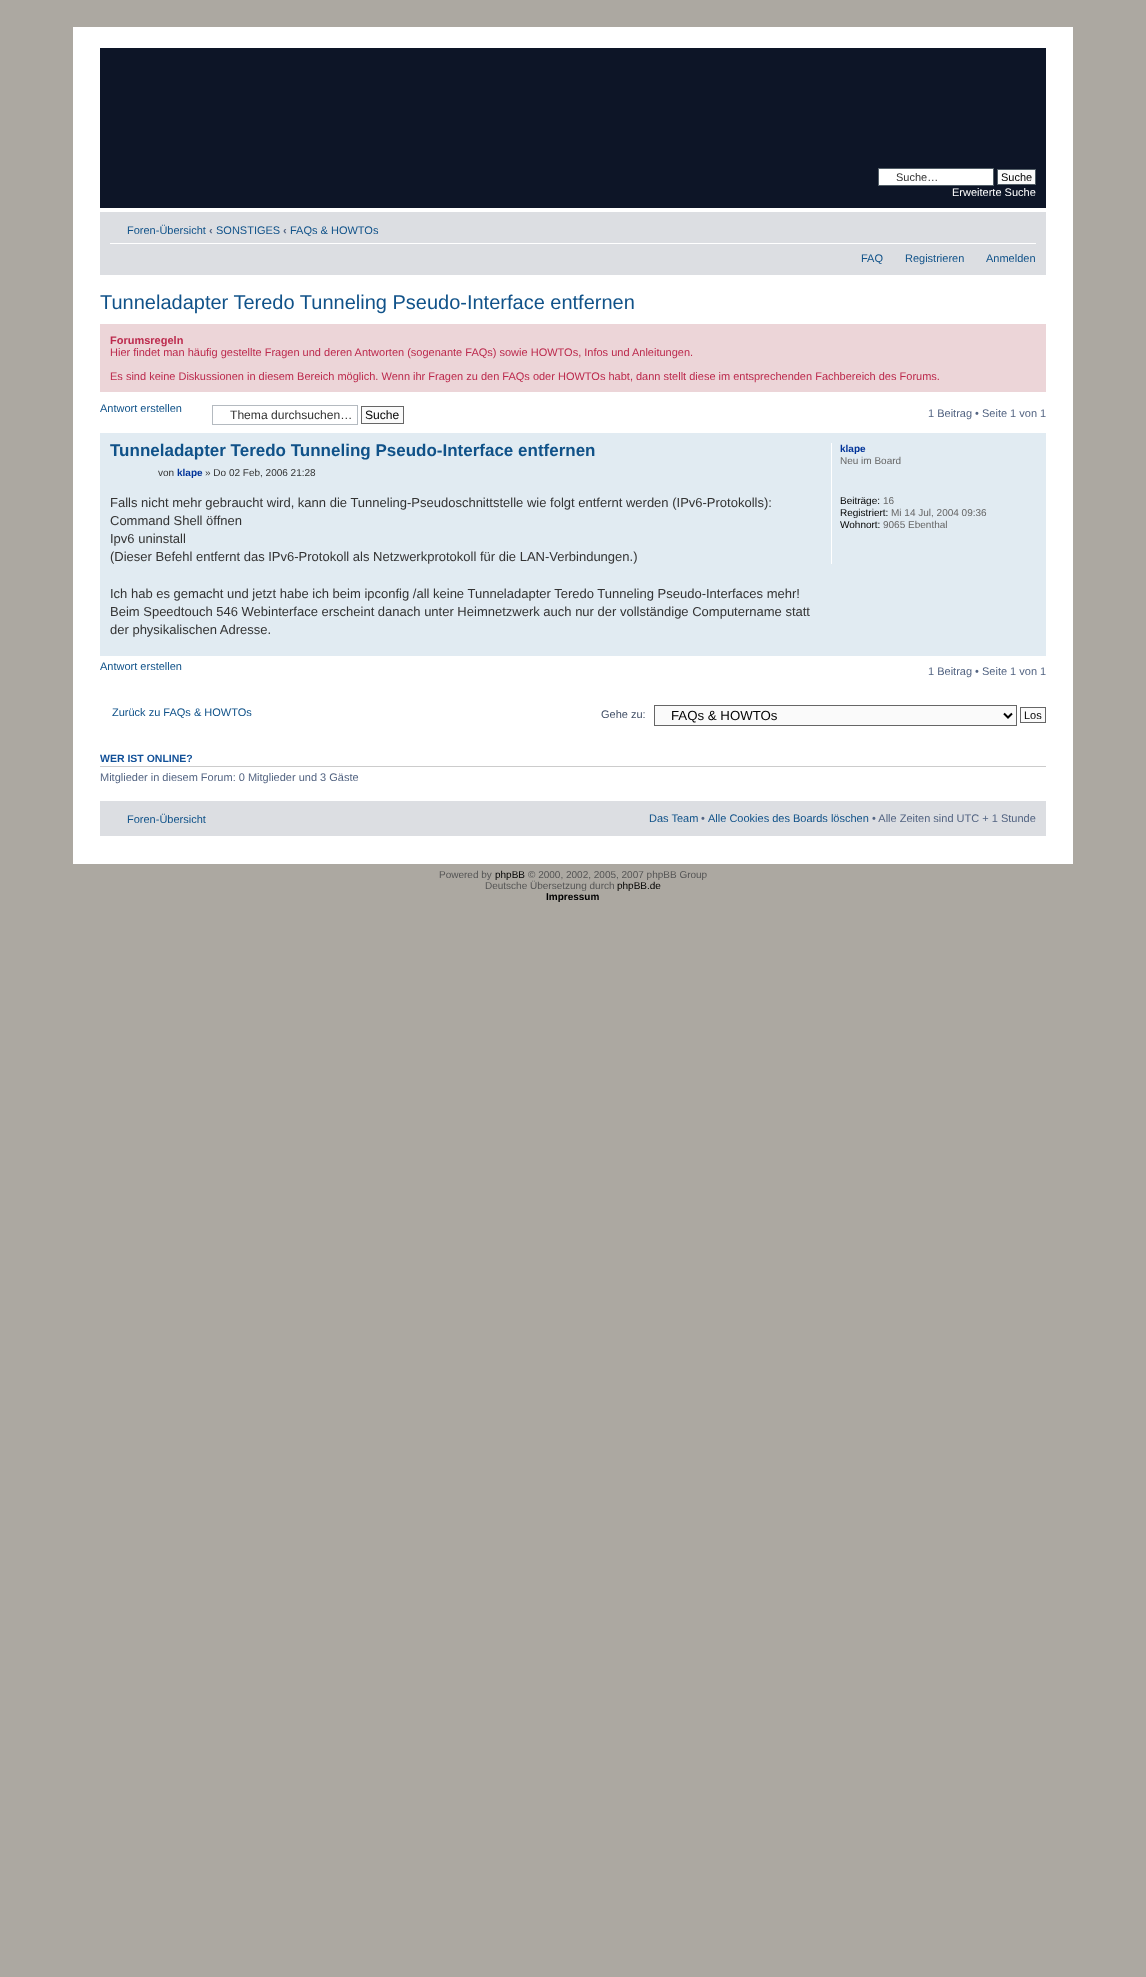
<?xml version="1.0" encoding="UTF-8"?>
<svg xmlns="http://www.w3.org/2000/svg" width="1146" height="1977">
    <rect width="100%" height="100%" fill="#ACA8A1"/>
    <rect x="73" y="27" width="1000" height="837" fill="#FFFFFF"/>
    <rect x="100" y="48" width="946" height="160" fill="#0D1527"/>
    <rect x="878.5" y="168.5" width="115" height="17" fill="#FFFFFF" stroke="#525E67"/>
    <text x="896" y="181" font-family="Liberation Sans" font-size="11" fill="#333333">Suche…</text>
    <rect x="997.5" y="169.5" width="38" height="15" fill="#FAFAFA" stroke="#525E67"/>
    <text x="1001" y="181" font-family="Liberation Sans" font-size="11" fill="#000000">Suche</text>
    <text x="952" y="196" font-family="Liberation Sans" font-size="11" fill="#FFFFFF">Erweiterte Suche</text>
    <rect x="100" y="212" width="946" height="63" fill="#DCDEE2"/>
    <rect x="110" y="243" width="926" height="1" fill="#FFFFFF"/>
    <text x="127" y="234" font-family="Liberation Sans" font-size="11" fill="#105289">Foren-Übersicht</text>
    <text x="209" y="234" font-family="Liberation Sans" font-size="11" font-weight="700" fill="#536482">‹</text>
    <text x="216" y="234" font-family="Liberation Sans" font-size="11" fill="#105289">SONSTIGES</text>
    <text x="283" y="234" font-family="Liberation Sans" font-size="11" font-weight="700" fill="#536482">‹</text>
    <text x="290" y="234" font-family="Liberation Sans" font-size="11" fill="#105289">FAQs &amp; HOWTOs</text>
    <text x="861" y="262" font-family="Liberation Sans" font-size="11" fill="#105289">FAQ</text>
    <text x="905" y="262" font-family="Liberation Sans" font-size="11" fill="#105289">Registrieren</text>
    <text x="986" y="262" font-family="Liberation Sans" font-size="11" fill="#105289">Anmelden</text>
    <text x="100" y="309" font-family="Liberation Sans" font-size="20" fill="#105289">Tunneladapter Teredo Tunneling Pseudo-Interface entfernen</text>
    <rect x="100" y="324" width="946" height="68" fill="#ECD5D8"/>
    <text x="110" y="344" font-family="Liberation Sans" font-size="11" font-weight="700" fill="#BC2A4D">Forumsregeln</text>
    <text x="110" y="356" font-family="Liberation Sans" font-size="11" fill="#BC2A4D">Hier findet man häufig gestellte Fragen und deren Antworten (sogenante FAQs) sowie HOWTOs, Infos und Anleitungen.</text>
    <text x="110" y="380" font-family="Liberation Sans" font-size="11" fill="#BC2A4D">Es sind keine Diskussionen in diesem Bereich möglich. Wenn ihr Fragen zu den FAQs oder HOWTOs habt, dann stellt diese im entsprechenden Fachbereich des Forums.</text>
    <text x="100" y="412" font-family="Liberation Sans" font-size="11" fill="#105289">Antwort erstellen</text>
    <rect x="212.5" y="405.5" width="145" height="19" fill="none" stroke="#B4BAC0"/>
    <text x="230" y="419" font-family="Liberation Sans" font-size="12.1" fill="#333333">Thema durchsuchen…</text>
    <rect x="361.5" y="406.5" width="42" height="17" fill="#FAFAFA" stroke="#666666"/>
    <text x="365" y="419" font-family="Liberation Sans" font-size="12.1" fill="#000000">Suche</text>
    <text x="928" y="417" font-family="Liberation Sans" font-size="11" fill="#536482">1 Beitrag • Seite 1 von 1</text>
    <rect x="100" y="433" width="946" height="223" fill="#E1EBF2"/>
    <text x="110" y="456" font-family="Liberation Sans" font-size="17" font-weight="700" fill="#105289">Tunneladapter Teredo Tunneling Pseudo-Interface entfernen</text>
    <text x="158" y="476" font-family="Liberation Sans" font-size="10" fill="#333333">von</text>
    <text x="177" y="476" font-family="Liberation Sans" font-size="10" font-weight="700" fill="#003399">klape</text>
    <text x="205" y="476" font-family="Liberation Sans" font-size="10" fill="#333333">» Do 02 Feb, 2006 21:28</text>
    <text font-family="Liberation Sans" font-size="13" fill="#333333">
        <tspan x="110" y="507">Falls nicht mehr gebraucht wird, kann die Tunneling-Pseudoschnittstelle wie folgt entfernt werden (IPv6-Protokolls):</tspan>
        <tspan x="110" y="525">Command Shell öffnen</tspan>
        <tspan x="110" y="543">Ipv6 uninstall</tspan>
        <tspan x="110" y="561">(Dieser Befehl entfernt das IPv6-Protokoll als Netzwerkprotokoll für die LAN-Verbindungen.)</tspan>
    </text>
    <text font-family="Liberation Sans" font-size="13" fill="#333333">
        <tspan x="110" y="598">Ich hab es gemacht und jetzt habe ich beim ipconfig /all keine Tunneladapter Teredo Tunneling Pseudo-Interfaces mehr!</tspan>
        <tspan x="110" y="616">Beim Speedtouch 546 Webinterface erscheint danach unter Heimnetzwerk auch nur der vollständige Computername statt</tspan>
        <tspan x="110" y="634">der physikalischen Adresse.</tspan>
    </text>
    <rect x="831" y="443" width="1" height="121" fill="#FFFFFF"/>
    <text x="840" y="452" font-family="Liberation Sans" font-size="10" font-weight="700" fill="#003399">klape</text>
    <text x="840" y="464" font-family="Liberation Sans" font-size="10" fill="#666666">Neu im Board</text>
    <text x="840" y="504" font-family="Liberation Sans" font-size="10" fill="#000000">Beiträge:</text>
    <text x="883" y="504" font-family="Liberation Sans" font-size="10" fill="#666666">16</text>
    <text x="840" y="516" font-family="Liberation Sans" font-size="10" fill="#000000">Registriert:</text>
    <text x="891" y="516" font-family="Liberation Sans" font-size="10" fill="#666666">Mi 14 Jul, 2004 09:36</text>
    <text x="840" y="528" font-family="Liberation Sans" font-size="10" fill="#000000">Wohnort:</text>
    <text x="883" y="528" font-family="Liberation Sans" font-size="10" fill="#666666">9065 Ebenthal</text>
    <text x="100" y="670" font-family="Liberation Sans" font-size="11" fill="#105289">Antwort erstellen</text>
    <text x="928" y="675" font-family="Liberation Sans" font-size="11" fill="#536482">1 Beitrag • Seite 1 von 1</text>
    <text x="112" y="716" font-family="Liberation Sans" font-size="11" fill="#105289">Zurück zu FAQs &amp; HOWTOs</text>
    <text x="601" y="718" font-family="Liberation Sans" font-size="11" fill="#425067">Gehe zu:</text>
    <rect x="654.5" y="705.5" width="362" height="20" fill="#FAFAFA" stroke="#666666"/>
    <path d="M 1004 713.5 L 1008 717.5 L 1012 713.5" fill="none" stroke="#000000" stroke-width="2"/>
    <text x="671" y="720" font-family="Liberation Sans" font-size="13.25" fill="#000000">FAQs &amp; HOWTOs</text>
    <rect x="1020.5" y="707.5" width="25" height="15" fill="#FAFAFA" stroke="#666666"/>
    <text x="1024" y="719" font-family="Liberation Sans" font-size="11" fill="#000000">Los</text>
    <rect x="100" y="766" width="946" height="1" fill="#CCCCCC"/>
    <text x="100" y="762" font-family="Liberation Sans" font-size="10.5" font-weight="700" fill="#115098">WER IST ONLINE?</text>
    <text x="100" y="781" font-family="Liberation Sans" font-size="11" fill="#536482">Mitglieder in diesem Forum: 0 Mitglieder und 3 Gäste</text>
    <rect x="100" y="801" width="946" height="35" fill="#DCDEE2"/>
    <text x="127" y="823" font-family="Liberation Sans" font-size="11" fill="#105289">Foren-Übersicht</text>
    <text x="649" y="822" font-family="Liberation Sans" font-size="11" fill="#105289">Das Team</text>
    <text x="701" y="822" font-family="Liberation Sans" font-size="11" fill="#536482">•</text>
    <text x="708" y="822" font-family="Liberation Sans" font-size="11" fill="#105289">Alle Cookies des Boards löschen</text>
    <text x="872" y="822" font-family="Liberation Sans" font-size="11" fill="#536482">• Alle Zeiten sind UTC + 1 Stunde</text>
    <text x="439" y="878" font-family="Liberation Sans" font-size="10" fill="#555555">Powered by</text>
    <text x="495" y="878" font-family="Liberation Sans" font-size="10" fill="#000000">phpBB</text>
    <text x="528" y="878" font-family="Liberation Sans" font-size="10" fill="#555555">© 2000, 2002, 2005, 2007 phpBB Group</text>
    <text x="485" y="889" font-family="Liberation Sans" font-size="10" fill="#555555">Deutsche Übersetzung durch</text>
    <text x="617" y="889" font-family="Liberation Sans" font-size="10" fill="#000000">phpBB.de</text>
    <text x="546" y="900" font-family="Liberation Sans" font-size="10" font-weight="700" fill="#000000">Impressum</text>
</svg>
